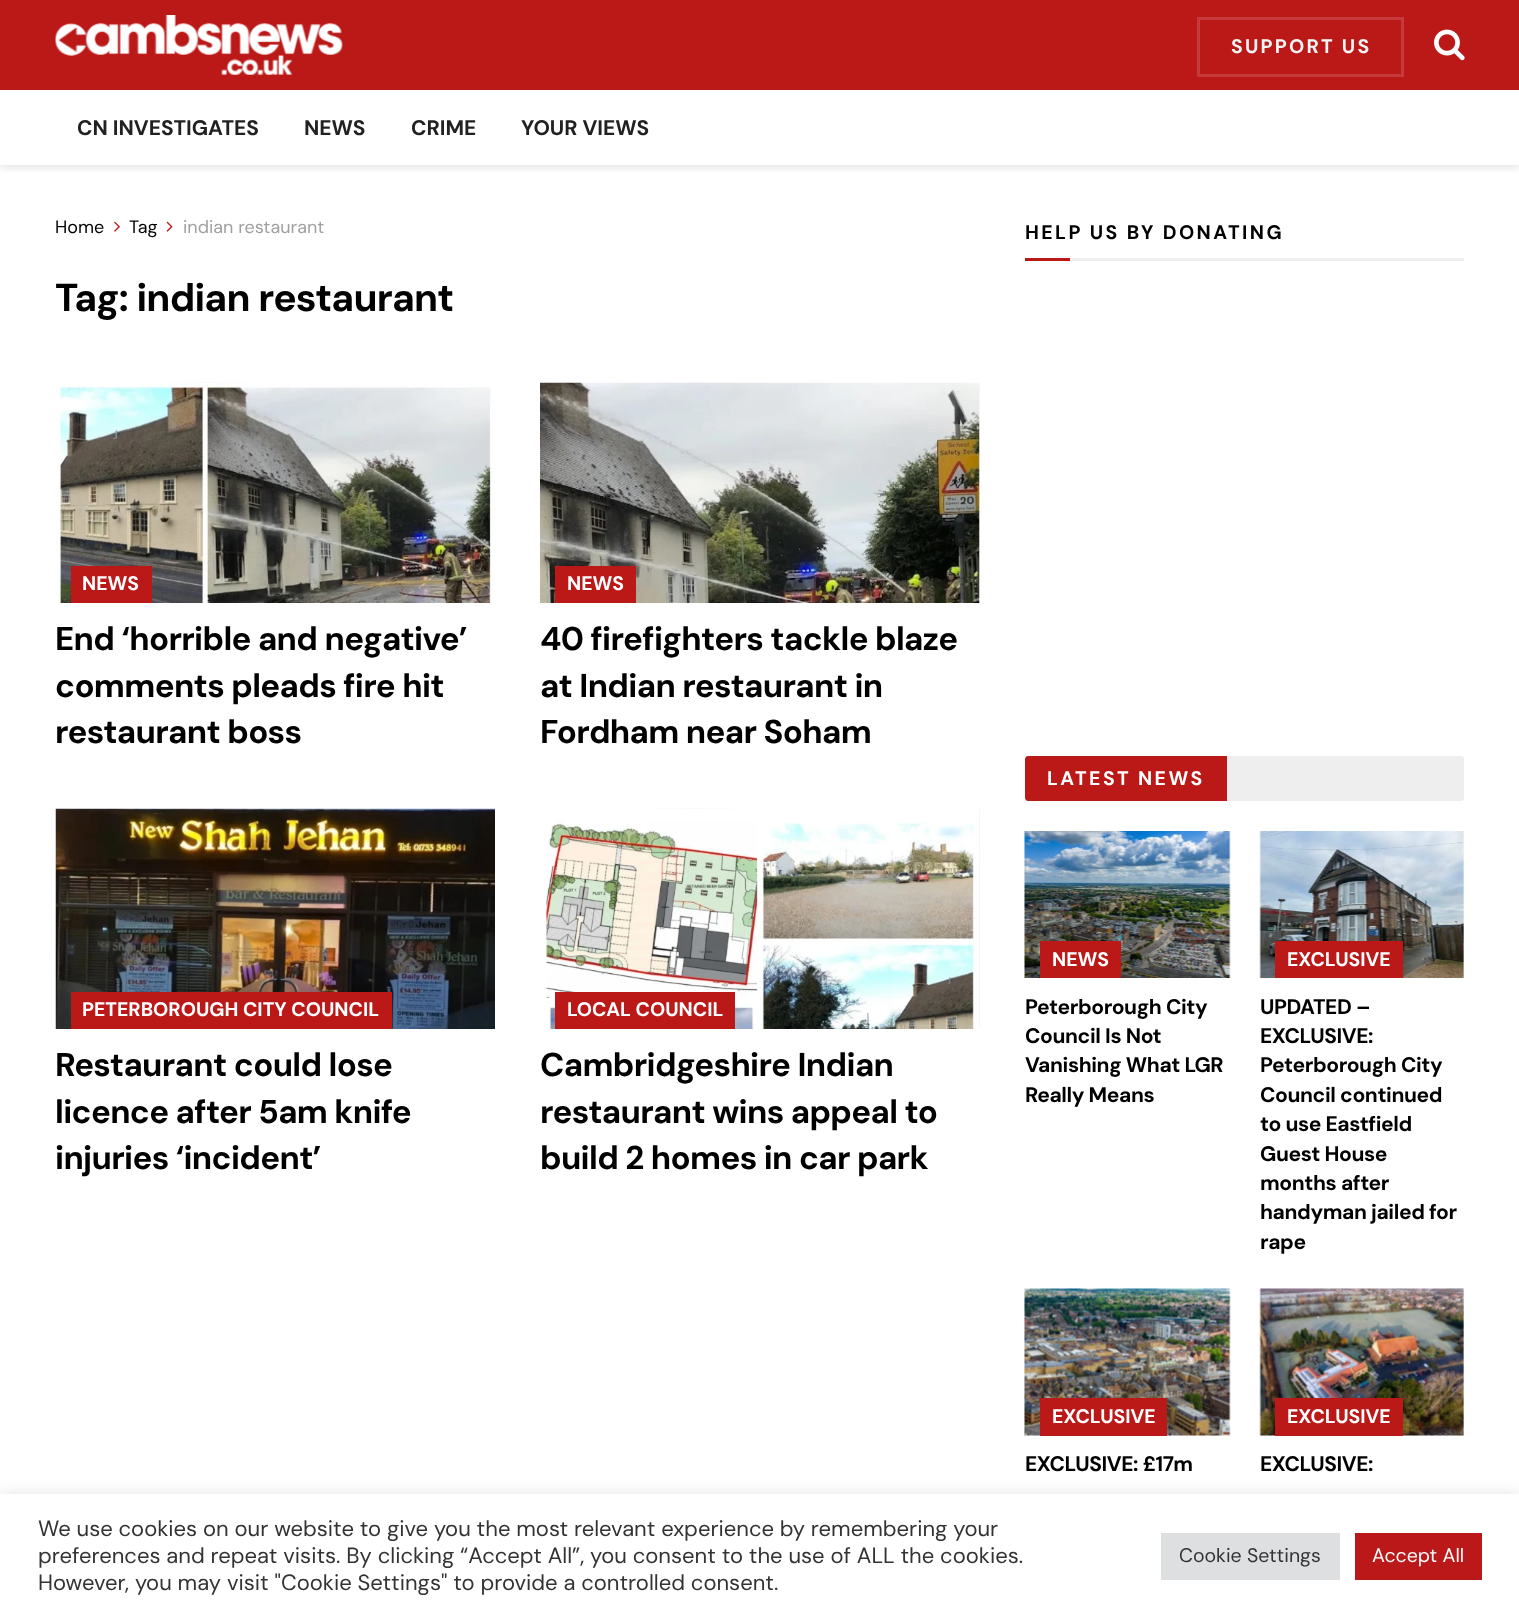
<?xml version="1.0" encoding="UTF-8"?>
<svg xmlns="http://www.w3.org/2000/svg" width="1519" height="1616">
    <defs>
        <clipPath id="clip1"><rect x="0" y="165" width="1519" height="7"/></clipPath>
        <filter id="blur1" x="-50%" y="-200%" width="200%" height="500%"><feGaussianBlur stdDeviation="4.5"/></filter>
        <filter id="blur2" x="-50%" y="-200%" width="200%" height="500%"><feGaussianBlur stdDeviation="7.5"/></filter>
    </defs>
    <rect width="100%" height="100%" fill="#FFFFFF"/>
    <g clip-path="url(#clip1)">
        <rect x="0" y="3" width="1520" height="165" fill="#000000" fill-opacity="0.1" filter="url(#blur1)"/>
    </g>
    <rect x="0" y="0" width="1519" height="90" fill="#BB1818"/>
    <image x="55" y="15" width="288" height="60" href="img_01.png"/>
    <rect x="1198.5" y="18.5" width="204" height="57" fill="none" stroke="#C53B3B" stroke-width="3"/>
    <text x="1231" y="53" font-family="DM Sans" font-size="19.5" font-weight="700" letter-spacing="2.25" fill="#F5F5F5">SUPPORT US</text>
    <image x="1434" y="29" width="31" height="32" href="img_02.png"/>
    <text x="77" y="135" font-family="DM Sans" font-size="21" font-weight="700" fill="#212121">CN INVESTIGATES</text>
    <text x="304" y="135" font-family="DM Sans" font-size="21" font-weight="700" fill="#212121">NEWS</text>
    <text x="411" y="135" font-family="DM Sans" font-size="21" font-weight="700" fill="#212121">CRIME</text>
    <text x="521" y="135" font-family="DM Sans" font-size="21" font-weight="700" fill="#212121">YOUR VIEWS</text>
    <text x="55" y="233" font-family="DM Sans" font-size="18" fill="#000000">Home</text>
    <image x="114" y="221" width="6" height="11" href="img_03.png"/>
    <text x="129" y="233" font-family="DM Sans" font-size="18" fill="#000000">Tag</text>
    <image x="166" y="221" width="7" height="11" href="img_04.png"/>
    <text x="183" y="233" font-family="DM Sans" font-size="18" fill="#A0A0A0">indian restaurant</text>
    <text x="55" y="311" font-family="DM Sans" font-size="39" font-weight="700" letter-spacing="-0.75" fill="#000000">Tag: indian restaurant</text>
    <image x="170" y="382" width="79" height="1" href="img_05.png"/>
    <image x="56" y="383" width="439" height="220" href="img_06.png"/>
    <rect x="71" y="566" width="81" height="37" fill="#BB1818"/>
    <text x="82" y="590" font-family="DM Sans" font-size="19.5" font-weight="700" fill="#FFFFFF">NEWS</text>
    <text font-family="DM Sans" font-size="33" font-weight="700" letter-spacing="-0.65" fill="#000000">
        <tspan x="55" y="650">End ‘horrible and negative’</tspan>
        <tspan x="55" y="697">comments pleads fire hit</tspan>
        <tspan x="55" y="743">restaurant boss</tspan>
    </text>
    <rect x="979" y="383" width="1" height="220" fill="#F7F7F7"/>
    <image x="655" y="382" width="79" height="1" href="img_08.png"/>
    <image x="540" y="382" width="440" height="221" href="img_07.png"/>
    <rect x="555" y="566" width="81" height="37" fill="#BB1818"/>
    <text x="567" y="590" font-family="DM Sans" font-size="19.5" font-weight="700" fill="#FFFFFF">NEWS</text>
    <text font-family="DM Sans" font-size="33" font-weight="700" letter-spacing="-0.65" fill="#000000">
        <tspan x="540" y="650">40 firefighters tackle blaze</tspan>
        <tspan x="540" y="697">at Indian restaurant in</tspan>
        <tspan x="540" y="743">Fordham near Soham</tspan>
    </text>
    <image x="170" y="808" width="79" height="1" href="img_05.png"/>
    <image x="55" y="808" width="440" height="221" href="img_09.png"/>
    <rect x="71" y="992" width="321" height="37" fill="#BB1818"/>
    <text x="82" y="1016" font-family="DM Sans" font-size="19.5" font-weight="700" fill="#FFFFFF">PETERBOROUGH CITY COUNCIL</text>
    <text font-family="DM Sans" font-size="33" font-weight="700" letter-spacing="-0.65" fill="#000000">
        <tspan x="55" y="1076">Restaurant could lose</tspan>
        <tspan x="55" y="1123">licence after 5am knife</tspan>
        <tspan x="55" y="1169">injuries ‘incident’</tspan>
    </text>
    <rect x="979" y="809" width="1" height="220" fill="#F7F7F7"/>
    <image x="655" y="808" width="79" height="1" href="img_08.png"/>
    <image x="540" y="809" width="439" height="220" href="img_10.png"/>
    <rect x="555" y="992" width="180" height="37" fill="#BB1818"/>
    <text x="567" y="1016" font-family="DM Sans" font-size="19.5" font-weight="700" fill="#FFFFFF">LOCAL COUNCIL</text>
    <text font-family="DM Sans" font-size="33" font-weight="700" letter-spacing="-0.65" fill="#000000">
        <tspan x="540" y="1076">Cambridgeshire Indian</tspan>
        <tspan x="540" y="1123">restaurant wins appeal to</tspan>
        <tspan x="540" y="1169">build 2 homes in car park</tspan>
    </text>
    <rect x="1070" y="258" width="394" height="3" fill="#EEEEEE"/>
    <text x="1025" y="239" font-family="DM Sans" font-size="19.5" font-weight="700" letter-spacing="2.4" fill="#000000">HELP US BY DONATING</text>
    <rect x="1025" y="258" width="45" height="3" fill="#BB1818"/>
    <rect x="1025" y="756" width="439" height="45" rx="3" fill="#EEEEEE"/>
    <path d="M 1028 756 H 1227 V 801 H 1028 C 1026.5 801 1025 799.5 1025 798 V 759 C 1025 757.5 1026.5 756 1028 756 Z" fill="#BB1818"/>
    <text x="1047" y="785" font-family="DM Sans" font-size="19.5" font-weight="700" letter-spacing="2.4" fill="#FFFFFF">LATEST NEWS</text>
    <rect x="1229" y="831" width="1" height="147" fill="#F7F7F7"/>
    <image x="1024" y="831" width="1" height="147" href="img_11.png"/>
    <image x="1024" y="831" width="207" height="147" href="img_12.png"/>
    <rect x="1040" y="941" width="81" height="37" fill="#BB1818"/>
    <text x="1052" y="966" font-family="DM Sans" font-size="19.5" font-weight="700" fill="#FFFFFF">NEWS</text>
    <text font-family="DM Sans" font-size="21" font-weight="700" letter-spacing="-0.4" fill="#000000">
        <tspan x="1025" y="1014">Peterborough City</tspan>
        <tspan x="1025" y="1043">Council Is Not</tspan>
        <tspan x="1025" y="1072">Vanishing What LGR</tspan>
        <tspan x="1025" y="1102">Really Means</tspan>
    </text>
    <rect x="1260" y="831" width="204" height="147" fill="#F7F7F7"/>
    <image x="1259" y="831" width="205" height="147" href="img_13.png"/>
    <rect x="1275" y="941" width="128" height="37" fill="#BB1818"/>
    <text x="1287" y="966" font-family="DM Sans" font-size="19.5" font-weight="700" fill="#FFFFFF">EXCLUSIVE</text>
    <text font-family="DM Sans" font-size="21" font-weight="700" letter-spacing="-0.4" fill="#000000">
        <tspan x="1260" y="1014">UPDATED –</tspan>
        <tspan x="1260" y="1043">EXCLUSIVE:</tspan>
        <tspan x="1260" y="1072">Peterborough City</tspan>
        <tspan x="1260" y="1102">Council continued</tspan>
        <tspan x="1260" y="1131">to use Eastfield</tspan>
        <tspan x="1260" y="1161">Guest House</tspan>
        <tspan x="1260" y="1190">months after</tspan>
        <tspan x="1260" y="1219">handyman jailed for</tspan>
        <tspan x="1260" y="1249">rape</tspan>
    </text>
    <rect x="1025" y="1289" width="205" height="147" fill="#F7F7F7"/>
    <image x="1024" y="1288" width="205" height="148" href="img_14.png"/>
    <image x="1024" y="1288" width="207" height="148" href="img_15.png"/>
    <rect x="1040" y="1398" width="127" height="38" fill="#BB1818"/>
    <text x="1052" y="1423" font-family="DM Sans" font-size="19.5" font-weight="700" fill="#FFFFFF">EXCLUSIVE</text>
    <text x="1025" y="1471" font-family="DM Sans" font-size="21" font-weight="700" letter-spacing="-0.4" fill="#000000">EXCLUSIVE: £17m</text>
    <rect x="1260" y="1289" width="204" height="147" fill="#F7F7F7"/>
    <image x="1261" y="1288" width="202" height="148" href="img_17.png"/>
    <image x="1259" y="1288" width="205" height="148" href="img_16.png"/>
    <rect x="1275" y="1398" width="128" height="38" fill="#BB1818"/>
    <text x="1287" y="1423" font-family="DM Sans" font-size="19.5" font-weight="700" fill="#FFFFFF">EXCLUSIVE</text>
    <text x="1260" y="1471" font-family="DM Sans" font-size="21" font-weight="700" letter-spacing="-0.4" fill="#000000">EXCLUSIVE:</text>
    <rect x="0" y="1493" width="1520" height="123" fill="#ACABAB" fill-opacity="0.3" filter="url(#blur2)"/>
    <rect x="0" y="1494" width="1519" height="122" fill="#FFFFFF"/>
    <text font-family="DM Sans" font-size="22" fill="#333333">
        <tspan x="38" y="1536">We use cookies on our website to give you the most relevant experience by remembering your</tspan>
        <tspan x="38" y="1563">preferences and repeat visits. By clicking “Accept All”, you consent to the use of ALL the cookies.</tspan>
        <tspan x="38" y="1590">However, you may visit "Cookie Settings" to provide a controlled consent.</tspan>
    </text>
    <rect x="1161" y="1533" width="179" height="47" fill="#DEDFE0"/>
    <text x="1179" y="1562" font-family="DM Sans" font-size="19.5" fill="#333333">Cookie Settings</text>
    <rect x="1355" y="1533" width="127" height="47" fill="#BB1819"/>
    <text x="1372" y="1562" font-family="DM Sans" font-size="19.5" fill="#FFFFFF">Accept All</text>
</svg>
